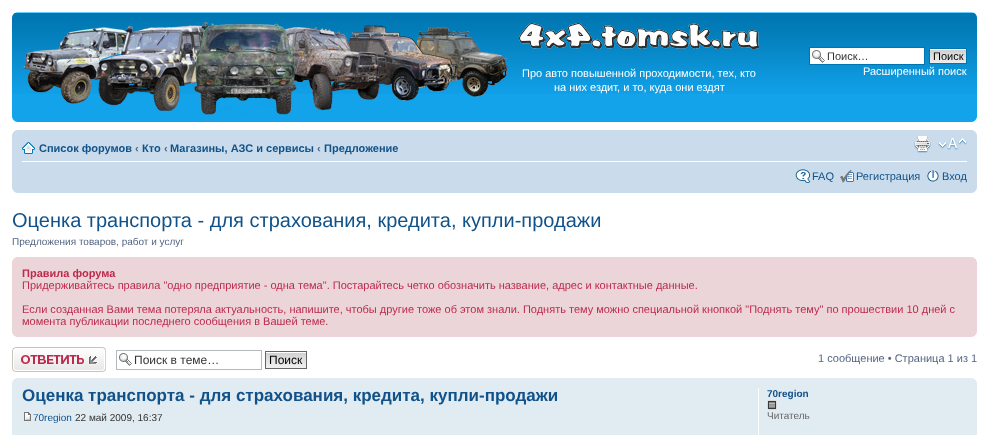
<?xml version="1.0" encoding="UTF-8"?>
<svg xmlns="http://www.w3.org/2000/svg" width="989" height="435">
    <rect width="100%" height="100%" fill="#FFFFFF"/>
    <rect x="12" y="94" width="965" height="28" fill="#12A3EB"/>
    <image x="12" y="12" width="965" height="82" href="img_01.png"/>
    <image x="12" y="12" width="5" height="5" href="img_02.png"/>
    <image x="972" y="12" width="5" height="5" href="img_03.png"/>
    <rect x="810" y="48" width="114" height="16" fill="#FFFFFF"/>
    <image x="812" y="50" width="13" height="13" href="img_04.png"/>
    <rect x="809.5" y="47.5" width="115" height="17" fill="none" stroke="#0075B0"/>
    <text x="827" y="60" font-family="Liberation Sans" font-size="11" fill="#333333">Поиск…</text>
    <image x="930" y="49" width="36" height="14" href="img_05.png"/>
    <rect x="929.5" y="48.5" width="37" height="15" fill="none" stroke="#0075B0"/>
    <text x="933" y="60" font-family="Liberation Sans" font-size="11" fill="#000000">Поиск</text>
    <text x="863" y="75" font-family="Liberation Sans" font-size="11" fill="#FFFFFF">Расширенный поиск</text>
    <image x="23" y="22" width="485" height="93" href="img_06.png"/>
    <image x="519" y="23" width="240" height="26" href="img_07.png"/>
    <text x="522" y="77" font-family="Liberation Sans" font-size="11" fill="#FFFFFF">Про авто повышенной проходимости, тех, кто</text>
    <text x="554" y="91" font-family="Liberation Sans" font-size="11" fill="#FFFFFF">на них ездит, и то, куда они ездят</text>
    <image x="12" y="117" width="5" height="5" href="img_08.png"/>
    <image x="972" y="117" width="5" height="5" href="img_09.png"/>
    <rect x="12" y="130" width="965" height="63" fill="#CADCEB"/>
    <image x="12" y="130" width="5" height="5" href="img_10.png"/>
    <image x="972" y="130" width="5" height="5" href="img_11.png"/>
    <rect x="22" y="161" width="945" height="1" fill="#FFFFFF"/>
    <image x="22" y="142" width="13" height="12" href="img_12.png"/>
    <text x="39" y="152" font-family="Liberation Sans" font-size="11" font-weight="700" fill="#105289">Список форумов</text>
    <text x="135" y="152" font-family="Liberation Sans" font-size="11" font-weight="700" fill="#536482">‹</text>
    <text x="142" y="152" font-family="Liberation Sans" font-size="11" font-weight="700" fill="#105289">Кто</text>
    <text x="164" y="152" font-family="Liberation Sans" font-size="11" font-weight="700" fill="#536482">‹</text>
    <text x="170" y="152" font-family="Liberation Sans" font-size="11" font-weight="700" fill="#105289">Магазины, АЗС и сервисы</text>
    <text x="317" y="152" font-family="Liberation Sans" font-size="11" font-weight="700" fill="#536482">‹</text>
    <text x="324" y="152" font-family="Liberation Sans" font-size="11" font-weight="700" fill="#105289">Предложение</text>
    <image x="914" y="136" width="17" height="17" href="img_13.png"/>
    <image x="938" y="138" width="29" height="12" href="img_14.png"/>
    <image x="795" y="169" width="16" height="14" href="img_15.png"/>
    <text x="812" y="180" font-family="Liberation Sans" font-size="11" fill="#105289">FAQ</text>
    <image x="840" y="170" width="14" height="13" href="img_16.png"/>
    <text x="856" y="180" font-family="Liberation Sans" font-size="11" fill="#105289">Регистрация</text>
    <image x="927" y="170" width="12" height="12" href="img_17.png"/>
    <text x="942" y="180" font-family="Liberation Sans" font-size="11" fill="#105289">Вход</text>
    <image x="12" y="188" width="5" height="5" href="img_18.png"/>
    <image x="972" y="188" width="5" height="5" href="img_19.png"/>
    <text x="12" y="227" font-family="Liberation Sans" font-size="20" fill="#105289">Оценка транспорта - для страхования, кредита, купли-продажи</text>
    <text x="12" y="245" font-family="Liberation Sans" font-size="10" fill="#536482">Предложения товаров, работ и услуг</text>
    <rect x="12" y="257" width="965" height="80" fill="#ECD5D8"/>
    <image x="12" y="257" width="5" height="5" href="img_20.png"/>
    <image x="972" y="257" width="5" height="5" href="img_21.png"/>
    <text x="22" y="277" font-family="Liberation Sans" font-size="11" font-weight="700" fill="#BC2A4D">Правила форума</text>
    <text x="22" y="289" font-family="Liberation Sans" font-size="11" fill="#BC2A4D">Придерживайтесь правила "одно предприятие - одна тема". Постарайтесь четко обозначить название, адрес и контактные данные.</text>
    <text font-family="Liberation Sans" font-size="11" fill="#BC2A4D">
        <tspan x="22" y="313">Если созданная Вами тема потеряла актуальность, напишите, чтобы другие тоже об этом знали. Поднять тему можно специальной кнопкой "Поднять тему" по прошествии 10 дней с</tspan>
        <tspan x="22" y="325">момента публикации последнего сообщения в Вашей теме.</tspan>
    </text>
    <image x="12" y="332" width="5" height="5" href="img_22.png"/>
    <image x="972" y="332" width="5" height="5" href="img_23.png"/>
    <image x="12" y="347" width="94" height="25" href="img_24.png"/>
    <image x="119" y="353" width="13" height="13" href="img_04.png"/>
    <rect x="116.5" y="350.5" width="145" height="19" fill="none" stroke="#B4BAC0"/>
    <text x="134" y="364" font-family="Liberation Sans" font-size="12" fill="#333333">Поиск в теме…</text>
    <image x="266" y="352" width="40" height="16" href="img_25.png"/>
    <rect x="265.5" y="351.5" width="41" height="17" fill="none" stroke="#666666"/>
    <text x="269" y="364" font-family="Liberation Sans" font-size="12" fill="#000000">Поиск</text>
    <text x="818" y="362" font-family="Liberation Sans" font-size="11" fill="#536482">1 сообщение • Страница 1 из 1</text>
    <rect x="12" y="378" width="965" height="57" fill="#E1EBF2"/>
    <image x="12" y="378" width="5" height="5" href="img_26.png"/>
    <image x="972" y="378" width="5" height="5" href="img_27.png"/>
    <text x="22" y="401" font-family="Liberation Sans" font-size="17" font-weight="700" fill="#105289">Оценка транспорта - для страхования, кредита, купли-продажи</text>
    <image x="24" y="412" width="7" height="9" href="img_28.png"/>
    <text x="33" y="421" font-family="Liberation Sans" font-size="10" fill="#105289">70region</text>
    <text x="75" y="421" font-family="Liberation Sans" font-size="10" fill="#333333">22 май 2009, 16:37</text>
    <rect x="758" y="388" width="1" height="47" fill="#FFFFFF"/>
    <text x="767" y="397" font-family="Liberation Sans" font-size="10" font-weight="700" fill="#105289">70region</text>
    <image x="767" y="400" width="10" height="10" href="img_29.png"/>
    <text x="767" y="419" font-family="Liberation Sans" font-size="10" fill="#666666">Читатель</text>
</svg>
